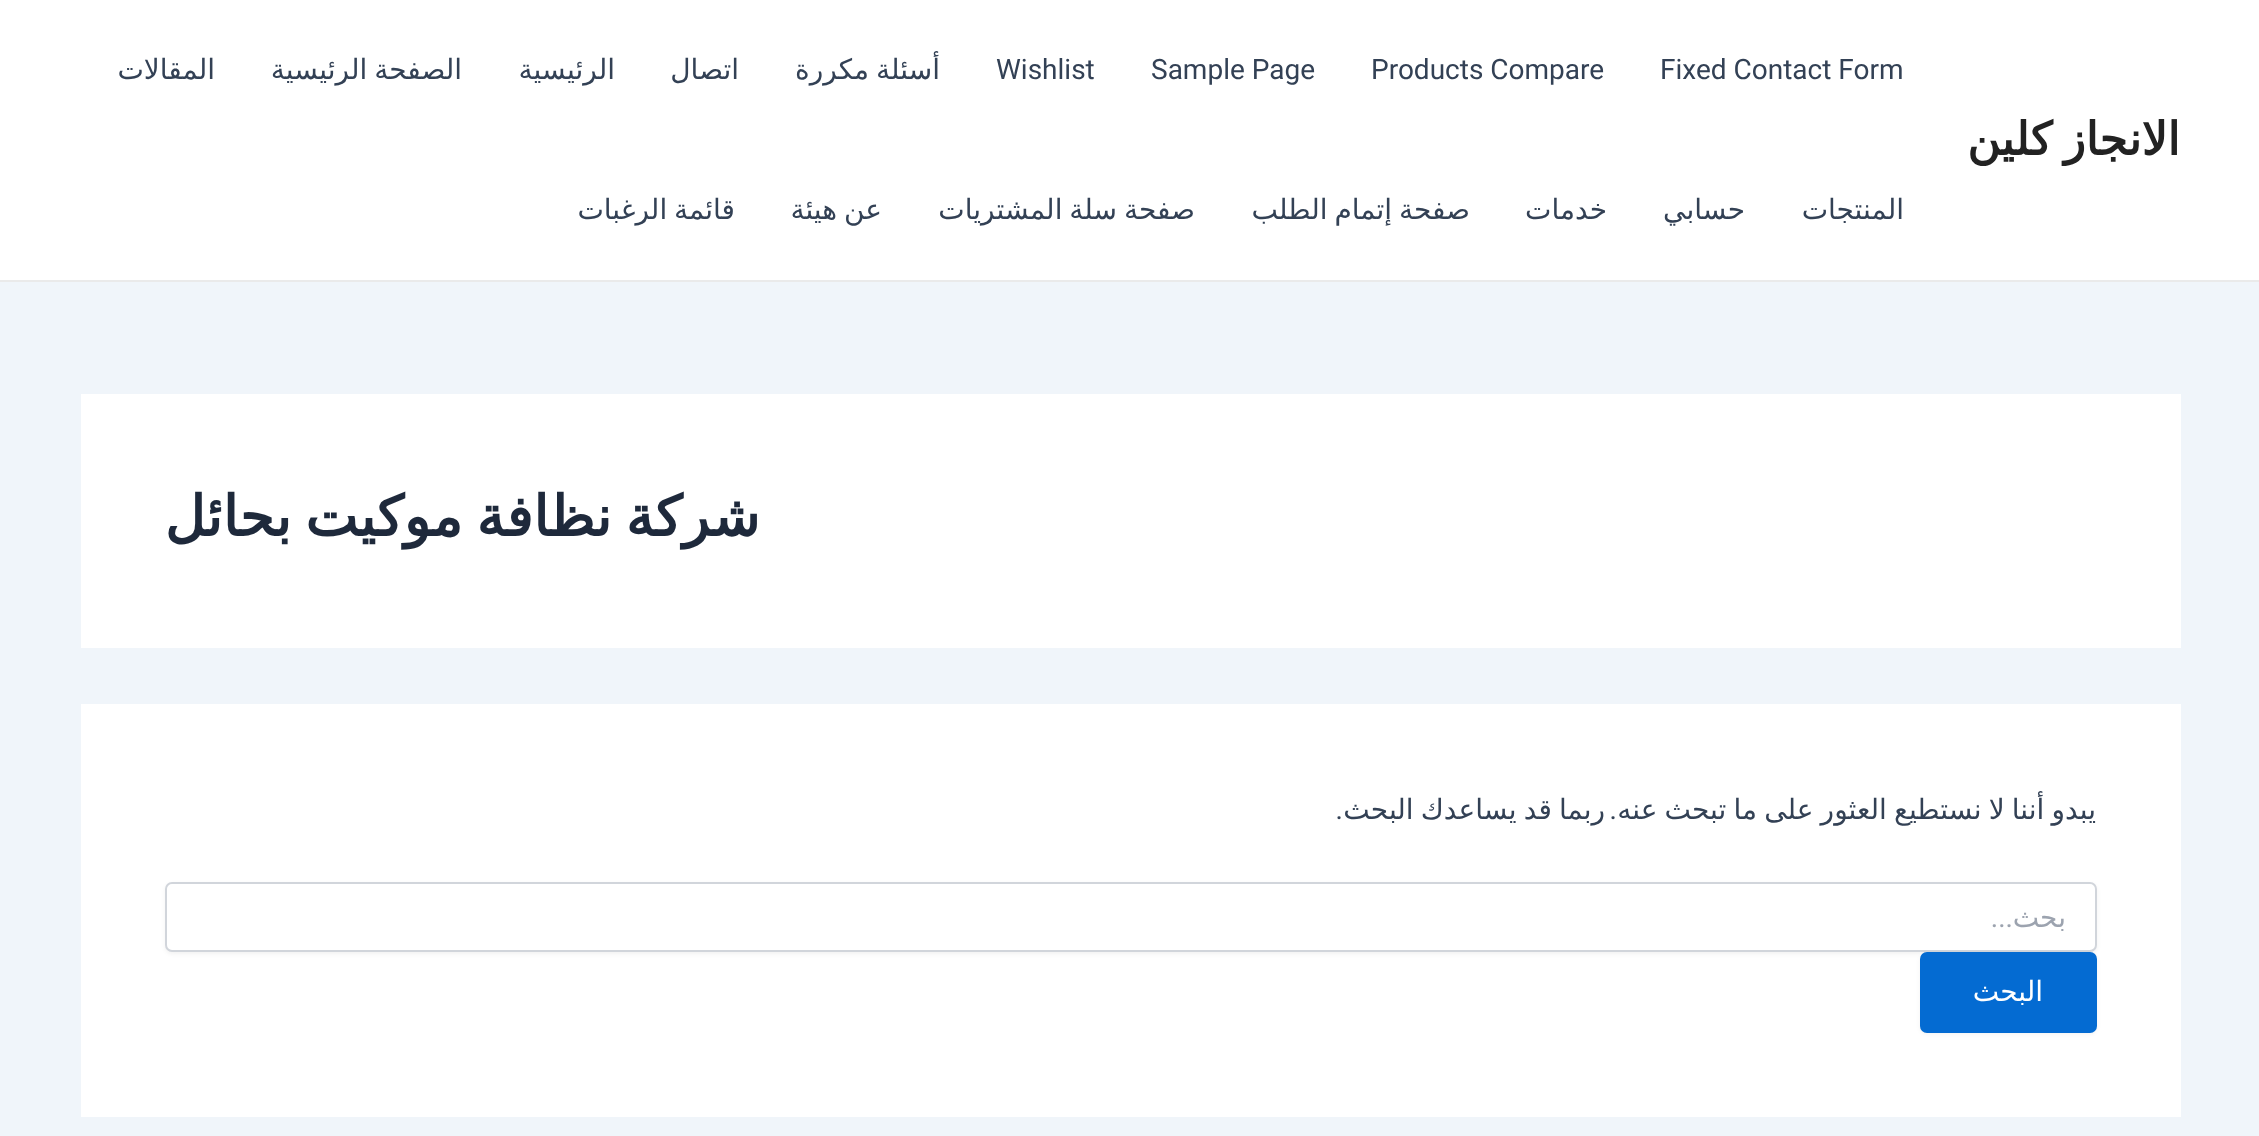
<?xml version="1.0" encoding="UTF-8"?>
<svg xmlns="http://www.w3.org/2000/svg" width="2259" height="1136">
    <defs>
        <filter id="blur1" x="-50%" y="-200%" width="200%" height="500%"><feGaussianBlur stdDeviation="2"/></filter>
    </defs>
    <rect width="100%" height="100%" fill="#F0F5FA"/>
    <rect x="0" y="0" width="2259" height="280" fill="#FFFFFF"/>
    <rect x="0" y="280" width="2259" height="2" fill="#EAEAEA"/>
    <text x="2180" y="155" word-spacing="-3" font-family="DejaVu Sans" font-size="45.5" font-weight="700" direction="rtl" fill="#222222">الانجاز كلين</text>
    <text x="1660" y="79" font-family="Roboto" font-size="28" fill="#334155">Fixed Contact Form</text>
    <text x="1371" y="79" font-family="Roboto" font-size="28" fill="#334155">Products Compare</text>
    <text x="1151" y="79" font-family="Roboto" font-size="28" fill="#334155">Sample Page</text>
    <text x="996" y="79" font-family="Roboto" font-size="28" fill="#334155">Wishlist</text>
    <text x="940" y="79" word-spacing="-2" font-family="DejaVu Sans" font-size="28" direction="rtl" fill="#334155">أسئلة مكررة</text>
    <text x="739" y="79" font-family="DejaVu Sans" font-size="28" direction="rtl" fill="#334155">اتصال</text>
    <text x="615" y="79" font-family="DejaVu Sans" font-size="28" direction="rtl" fill="#334155">الرئيسية</text>
    <text x="462" y="79" word-spacing="-2" font-family="DejaVu Sans" font-size="28" direction="rtl" fill="#334155">الصفحة الرئيسية</text>
    <text x="215" y="79" font-family="DejaVu Sans" font-size="28" direction="rtl" fill="#334155">المقالات</text>
    <text x="1904" y="219" font-family="DejaVu Sans" font-size="28" direction="rtl" fill="#334155">المنتجات</text>
    <text x="1745" y="219" font-family="DejaVu Sans" font-size="28" direction="rtl" fill="#334155">حسابي</text>
    <text x="1607" y="219" font-family="DejaVu Sans" font-size="28" direction="rtl" fill="#334155">خدمات</text>
    <text x="1470" y="219" word-spacing="-2" font-family="DejaVu Sans" font-size="28" direction="rtl" fill="#334155">صفحة إتمام الطلب</text>
    <text x="1195" y="219" word-spacing="-2" font-family="DejaVu Sans" font-size="28" direction="rtl" fill="#334155">صفحة سلة المشتريات</text>
    <text x="882" y="219" word-spacing="-2" font-family="DejaVu Sans" font-size="28" direction="rtl" fill="#334155">عن هيئة</text>
    <text x="735" y="219" word-spacing="-2" font-family="DejaVu Sans" font-size="28" direction="rtl" fill="#334155">قائمة الرغبات</text>
    <rect x="81" y="394" width="2100" height="254" fill="#FFFFFF"/>
    <text x="760" y="536" word-spacing="-4" font-family="DejaVu Sans" font-size="56" font-weight="700" direction="rtl" fill="#1E293B">شركة نظافة موكيت بحائل</text>
    <rect x="81" y="704" width="2100" height="413" fill="#FFFFFF"/>
    <text x="2096" y="819" word-spacing="-1.75" font-family="DejaVu Sans" font-size="28" direction="rtl" fill="#334155">يبدو أننا لا نستطيع العثور على ما تبحث عنه</text>
    <text x="1617" y="819" font-family="Roboto" font-size="28" direction="rtl" fill="#334155">.</text>
    <text x="1605" y="819" word-spacing="-1.75" font-family="DejaVu Sans" font-size="28" direction="rtl" fill="#334155">ربما قد يساعدك البحث</text>
    <text x="1343" y="819" font-family="Roboto" font-size="28" direction="rtl" fill="#334155">.</text>
    <rect x="165" y="884" width="1932" height="70" rx="7" fill="#000000" fill-opacity="0.05" filter="url(#blur1)"/>
    <rect x="166" y="883" width="1930" height="68" rx="6" fill="#FFFFFF" stroke="#D1D5DB" stroke-width="2"/>
    <text x="2066" y="927" font-family="DejaVu Sans" font-size="28" direction="rtl" fill="#9CA3AF">بحث</text>
    <text x="2013" y="927" font-family="Roboto" font-size="28" direction="rtl" fill="#9CA3AF">...</text>
    <rect x="1920" y="954" width="177" height="80" rx="7" fill="#000000" fill-opacity="0.05" filter="url(#blur1)"/>
    <rect x="1920" y="952" width="177" height="81" rx="7" fill="#046BD2"/>
    <text x="2043" y="1001" font-family="DejaVu Sans" font-size="28" direction="rtl" fill="#FFFFFF">البحث</text>
</svg>
